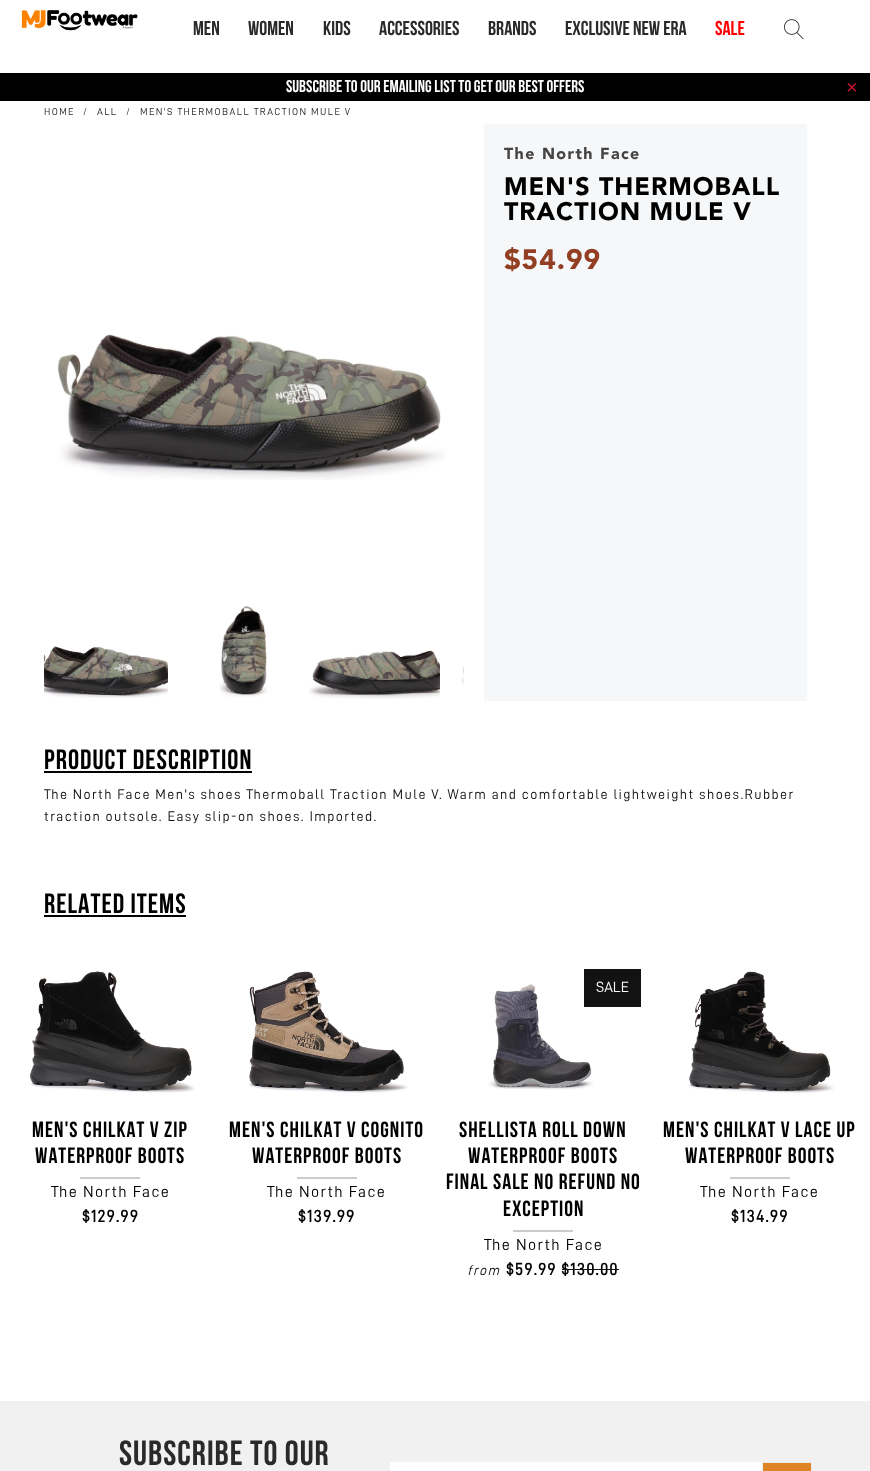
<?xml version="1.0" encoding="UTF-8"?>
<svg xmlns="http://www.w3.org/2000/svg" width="870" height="1471">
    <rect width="100%" height="100%" fill="#FFFFFF"/>
    <image x="21" y="10" width="117" height="21" href="img_01.png"/>
    <text x="193" y="35" font-family="Bebas Neue" font-size="20" font-weight="700" fill="#2B2A2A">MEN</text>
    <text x="248" y="35" font-family="Bebas Neue" font-size="20" font-weight="700" fill="#2B2A2A">WOMEN</text>
    <text x="323" y="35" font-family="Bebas Neue" font-size="20" font-weight="700" fill="#2B2A2A">KIDS</text>
    <text x="379" y="35" font-family="Bebas Neue" font-size="20" font-weight="700" fill="#2B2A2A">ACCESSORIES</text>
    <text x="488" y="35" font-family="Bebas Neue" font-size="20" font-weight="700" fill="#2B2A2A">BRANDS</text>
    <text x="565" y="35" font-family="Bebas Neue" font-size="20" font-weight="700" fill="#2B2A2A">EXCLUSIVE NEW ERA</text>
    <text x="715" y="35" font-family="Bebas Neue" font-size="20" font-weight="700" fill="#FF0000">SALE</text>
    <image x="784" y="19" width="20" height="21" href="img_02.png"/>
    <rect x="0" y="73" width="870" height="28" fill="#000000"/>
    <text x="286" y="92" font-family="Bebas Neue" font-size="17" font-weight="700" fill="#FDFDFD">Subscribe to our emailing list to get our best offers</text>
    <text x="846" y="94" font-family="Liberation Sans" font-size="20" letter-spacing="1.4" fill="#CC1132">×</text>
    <text x="44" y="115" font-family="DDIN" font-size="10" letter-spacing="1.4" fill="#2B2A2A">HOME</text>
    <text x="83" y="115" font-family="DDIN" font-size="10" letter-spacing="1.4" fill="#2B2A2A">/</text>
    <text x="97" y="115" font-family="DDIN" font-size="10" letter-spacing="1.4" fill="#2B2A2A">ALL</text>
    <text x="126" y="115" font-family="DDIN" font-size="10" letter-spacing="1.4" fill="#2B2A2A">/</text>
    <text x="140" y="115" font-family="DDIN" font-size="10" letter-spacing="1.4" fill="#2B2A2A">MEN'S THERMOBALL TRACTION MULE V</text>
    <rect x="484" y="124" width="323" height="577" fill="#F5F7F9"/>
    <text x="504" y="159" font-family="Avenir" font-size="16" font-weight="900" letter-spacing="1.4" fill="#454545">The North Face</text>
    <text font-family="Avenir" font-size="25" font-weight="900" letter-spacing="1" fill="#000000">
        <tspan x="504" y="195">MEN'S THERMOBALL</tspan>
        <tspan x="504" y="220">TRACTION MULE V</tspan>
    </text>
    <text x="504" y="269" font-family="Avenir" font-size="28" font-weight="900" letter-spacing="1" fill="#923F24">$54.99</text>
    <image x="57" y="334" width="389" height="146" href="img_03.png"/>
    <image x="44" y="646" width="131" height="52" href="img_04.png"/>
    <image x="168" y="606" width="100" height="91" href="img_05.png"/>
    <image x="309" y="650" width="139" height="49" href="img_06.png"/>
    <image x="440" y="657" width="24" height="38" href="img_07.png"/>
    <text x="44" y="769" font-family="Bebas Neue" font-size="28" font-weight="700" letter-spacing="1" fill="#000000">PRODUCT DESCRIPTION</text>
    <rect x="44" y="771" width="208" height="2" fill="#000000"/>
    <text font-family="DDIN" font-size="14" letter-spacing="1.4" fill="#121212">
        <tspan x="44" y="799">The North Face Men's shoes Thermoball Traction Mule V. Warm and comfortable lightweight shoes.Rubber</tspan>
        <tspan x="44" y="821">traction outsole. Easy slip-on shoes. Imported.</tspan>
    </text>
    <text x="44" y="913" font-family="Bebas Neue" font-size="28" font-weight="700" letter-spacing="1" fill="#000000">RELATED ITEMS</text>
    <rect x="44" y="915" width="142" height="2" fill="#000000"/>
    <image x="29" y="971" width="166" height="122" href="img_08.png"/>
    <text x="32" y="1137" font-family="Bebas Neue" font-size="22" font-weight="700" letter-spacing="1" fill="#000000">MEN'S CHILKAT V ZIP</text>
    <text x="35" y="1163" font-family="Bebas Neue" font-size="22" font-weight="700" letter-spacing="1" fill="#000000">WATERPROOF BOOTS</text>
    <rect x="80" y="1177" width="60" height="2" fill="#CCCCCC"/>
    <text x="51" y="1197" font-family="DDIN" font-size="16" letter-spacing="1.4" fill="#000000">The North Face</text>
    <text x="82" y="1222" font-family="DDIN" font-size="17" font-weight="700" letter-spacing="1" fill="#000000">$129.99</text>
    <image x="249" y="971" width="159" height="122" href="img_09.png"/>
    <text x="229" y="1137" font-family="Bebas Neue" font-size="22" font-weight="700" letter-spacing="1" fill="#000000">MEN'S CHILKAT V COGNITO</text>
    <text x="252" y="1163" font-family="Bebas Neue" font-size="22" font-weight="700" letter-spacing="1" fill="#000000">WATERPROOF BOOTS</text>
    <rect x="297" y="1177" width="60" height="2" fill="#CCCCCC"/>
    <text x="267" y="1197" font-family="DDIN" font-size="16" letter-spacing="1.4" fill="#000000">The North Face</text>
    <text x="298" y="1222" font-family="DDIN" font-size="17" font-weight="700" letter-spacing="1" fill="#000000">$139.99</text>
    <image x="488" y="984" width="105" height="106" href="img_10.png"/>
    <rect x="584" y="969" width="57" height="38" fill="#121212"/>
    <text x="596" y="992" font-family="DDIN" font-size="15" fill="#FDFDFD">SALE</text>
    <text x="459" y="1137" font-family="Bebas Neue" font-size="22" font-weight="700" letter-spacing="1" fill="#000000">SHELLISTA ROLL DOWN</text>
    <text x="468" y="1163" font-family="Bebas Neue" font-size="22" font-weight="700" letter-spacing="1" fill="#000000">WATERPROOF BOOTS</text>
    <text x="446" y="1189" font-family="Bebas Neue" font-size="22" font-weight="700" letter-spacing="1" fill="#000000">FINAL SALE NO REFUND NO</text>
    <text x="503" y="1216" font-family="Bebas Neue" font-size="22" font-weight="700" letter-spacing="1" fill="#000000">EXCEPTION</text>
    <rect x="513" y="1230" width="60" height="2" fill="#CCCCCC"/>
    <text x="484" y="1250" font-family="DDIN" font-size="16" letter-spacing="1.4" fill="#000000">The North Face</text>
    <text x="467" y="1275" font-family="DDIN" font-size="14" font-style="italic" letter-spacing="1.4" fill="#121212">from</text>
    <text x="506" y="1275" font-family="DDIN" font-size="17" font-weight="700" letter-spacing="1" fill="#000000">$59.99 $130.00</text>
    <rect x="562" y="1269" width="57" height="1" fill="#121212"/>
    <image x="689" y="971" width="145" height="122" href="img_11.png"/>
    <text x="663" y="1137" font-family="Bebas Neue" font-size="22" font-weight="700" letter-spacing="1" fill="#000000">MEN'S CHILKAT V LACE UP</text>
    <text x="685" y="1163" font-family="Bebas Neue" font-size="22" font-weight="700" letter-spacing="1" fill="#000000">WATERPROOF BOOTS</text>
    <rect x="730" y="1177" width="60" height="2" fill="#CCCCCC"/>
    <text x="700" y="1197" font-family="DDIN" font-size="16" letter-spacing="1.4" fill="#000000">The North Face</text>
    <text x="731" y="1222" font-family="DDIN" font-size="17" font-weight="700" letter-spacing="1" fill="#000000">$134.99</text>
    <rect x="0" y="1401" width="870" height="70" fill="#F2F1F1"/>
    <text x="119" y="1465" font-family="Bebas Neue" font-size="35" font-weight="700" letter-spacing="1" fill="#2B2A2A">SUBSCRIBE TO OUR</text>
    <rect x="390" y="1462" width="372" height="9" fill="#FFFFFF"/>
    <rect x="762.5" y="1462.5" width="49" height="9" fill="#DF8425" stroke="#EBEBEB"/>
</svg>
